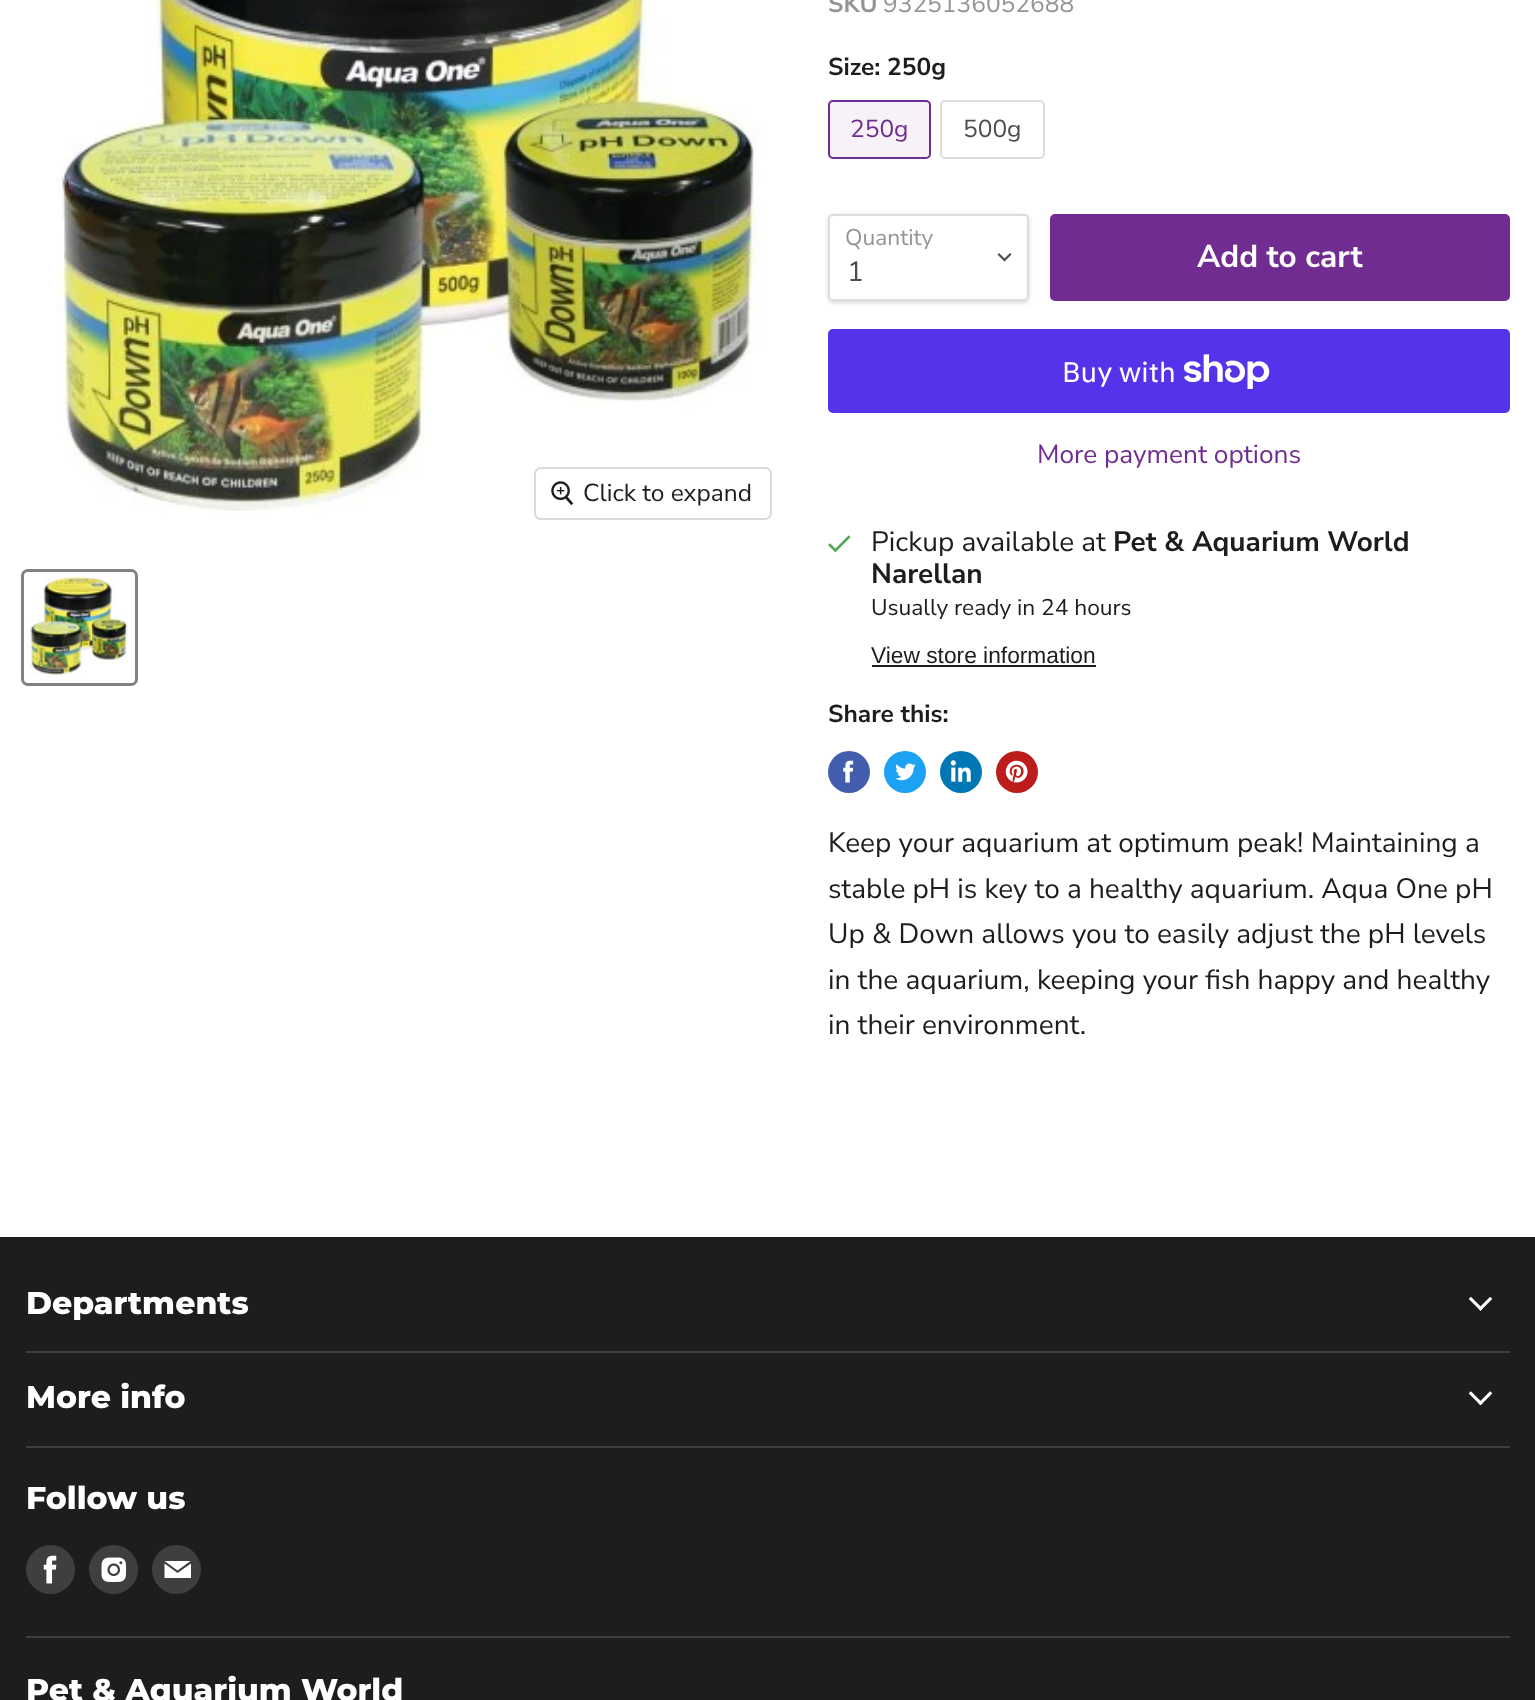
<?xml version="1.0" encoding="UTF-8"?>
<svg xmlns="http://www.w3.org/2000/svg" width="1535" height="1700">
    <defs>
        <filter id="blur1" x="-50%" y="-200%" width="200%" height="500%"><feGaussianBlur stdDeviation="2"/></filter>
    </defs>
    <rect width="100%" height="100%" fill="#FFFFFF"/>
    <image x="56" y="0" width="705" height="516" href="img_01.png"/>
    <rect x="535" y="468" width="236" height="51" rx="6" fill="none" stroke="#D9D9D9" stroke-width="2"/>
    <rect x="536" y="469" width="234" height="49" rx="5" fill="#FFFFFF" fill-opacity="0.9"/>
    <image x="551" y="481" width="23" height="25" href="img_02.png"/>
    <text x="583" y="501" font-family="Nunito Sans" font-size="24.5" fill="#1D1D1D">Click to expand</text>
    <rect x="22.5" y="570.5" width="114" height="114" rx="5.5" fill="none" stroke="#818181" stroke-width="3"/>
    <image x="26" y="574" width="102" height="102" href="img_03.png"/>
    <text x="828" y="12" font-family="Nunito Sans" font-size="24.5" font-weight="700" fill="#949494">SKU</text>
    <text x="883" y="12" font-family="Nunito Sans" font-size="24.5" fill="#949494">9325136052688</text>
    <text x="828" y="75" font-family="Nunito Sans" font-size="24.5" font-weight="700" fill="#1D1D1D">Size: 250g</text>
    <rect x="829" y="101" width="101" height="57" rx="4" fill="#F6F2F8" stroke="#712C91" stroke-width="2"/>
    <text x="850" y="137" font-family="Nunito Sans" font-size="24.5" fill="#712C91">250g</text>
    <rect x="941" y="101" width="103" height="57" rx="4" fill="none" stroke="#DDDDDD" stroke-width="2"/>
    <text x="963" y="137" font-family="Nunito Sans" font-size="24.5" fill="#4D4D4D">500g</text>
    <rect x="828" y="215" width="201" height="88" rx="5" fill="#000000" fill-opacity="0.15" filter="url(#blur1)"/>
    <rect x="829" y="215" width="199" height="85" rx="4" fill="#FFFFFF" stroke="#DDDDDD" stroke-width="2"/>
    <text x="845" y="245" font-family="Nunito Sans" font-size="22.75" fill="#949494">Quantity</text>
    <path d="M 1004.5 260 L 1010 254.5 M 1004.5 260 L 999 254.5" fill="none" stroke="#4D4D4D" stroke-width="2.2" stroke-linecap="square"/>
    <text x="847" y="281" font-family="Nunito Sans" font-size="28" fill="#4D4D4D">1</text>
    <rect x="1051" y="215" width="458" height="85" rx="4" fill="#712C91" stroke="#712C91" stroke-width="2"/>
    <text x="1197" y="267" font-family="Nunito Sans" font-size="31.5" font-weight="700" fill="#FFFFFF">Add to cart</text>
    <rect x="828" y="329" width="682" height="84" rx="5" fill="#5433EB"/>
    <text x="1062" y="382" font-family="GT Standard" font-size="28" fill="#FFFFFF">Buy with</text>
    <image x="1184" y="354" width="86" height="35" href="img_04.png"/>
    <text x="1037" y="463" font-family="Nunito Sans" font-size="26.25" fill="#712C91">More payment options</text>
    <image x="828" y="535" width="23" height="18" href="img_05.png"/>
    <text x="871" y="551" font-family="Nunito Sans" font-size="28" fill="#1D1D1D">Pickup available at</text>
    <text x="1113" y="551" font-family="Nunito Sans" font-size="28" font-weight="700" fill="#1D1D1D">Pet &amp; Aquarium World</text>
    <text x="871" y="583" font-family="Nunito Sans" font-size="28" font-weight="700" fill="#1D1D1D">Narellan</text>
    <text x="871" y="615" font-family="Nunito Sans" font-size="22.75" fill="#1D1D1D">Usually ready in 24 hours</text>
    <text x="871" y="663" font-family="Liberation Sans" font-size="22.75" fill="#1D1D1D">View store information</text>
    <rect x="872" y="665" width="224" height="2" fill="#1D1D1D"/>
    <text x="828" y="722" font-family="Nunito Sans" font-size="24.5" font-weight="700" fill="#1D1D1D">Share this:</text>
    <circle cx="849" cy="772" r="21" fill="#425DAB"/>
    <image x="843" y="760" width="11" height="23" href="img_06.png"/>
    <circle cx="905" cy="772" r="21" fill="#1DA1F2"/>
    <image x="895" y="763" width="21" height="18" href="img_07.png"/>
    <circle cx="961" cy="772" r="21" fill="#0077B5"/>
    <image x="950" y="760" width="21" height="22" href="img_08.png"/>
    <circle cx="1017" cy="772" r="21" fill="#BD1C1C"/>
    <image x="1005" y="760" width="23" height="23" href="img_09.png"/>
    <text font-family="Nunito Sans" font-size="28" fill="#1D1D1D">
        <tspan x="828" y="852">Keep your aquarium at optimum peak! Maintaining a</tspan>
        <tspan x="828" y="898">stable pH is key to a healthy aquarium. Aqua One pH</tspan>
        <tspan x="828" y="943">Up &amp; Down allows you to easily adjust the pH levels</tspan>
        <tspan x="828" y="989">in the aquarium, keeping your fish happy and healthy</tspan>
        <tspan x="828" y="1034">in their environment.</tspan>
    </text>
    <rect x="0" y="1237" width="1535" height="463" fill="#1D1D1D"/>
    <rect x="26" y="1351" width="1484" height="2" fill="#3F3F3F"/>
    <text x="26" y="1314" font-family="Montserrat" font-size="31.5" font-weight="800" fill="#FFFFFF">Departments</text>
    <image x="1468" y="1297" width="25" height="14" href="img_10.png"/>
    <rect x="26" y="1446" width="1484" height="2" fill="#3F3F3F"/>
    <text x="26" y="1408" font-family="Montserrat" font-size="31.5" font-weight="800" fill="#FFFFFF">More info</text>
    <image x="1468" y="1391" width="25" height="14" href="img_11.png"/>
    <rect x="26" y="1636" width="1484" height="2" fill="#3F3F3F"/>
    <text x="26" y="1509" font-family="Montserrat" font-size="31.5" font-weight="800" fill="#FFFFFF">Follow us</text>
    <circle cx="50.5" cy="1569.5" r="24.5" fill="#3F3F3F"/>
    <image x="43" y="1555" width="14" height="29" href="img_12.png"/>
    <circle cx="113.5" cy="1569.5" r="24.5" fill="#3F3F3F"/>
    <image x="101" y="1557" width="25" height="25" href="img_13.png"/>
    <circle cx="176.5" cy="1569.5" r="24.5" fill="#3F3F3F"/>
    <path d="M 190.5 1561 H 164.5 L 177.5 1570.5 Z M 177.5 1573 L 164.5 1563.5 V 1578 H 191 V 1563.5 Z" fill="#FFFFFF" fill-rule="evenodd"/>
    <text x="26" y="1701" font-family="Montserrat" font-size="31.5" font-weight="800" fill="#FFFFFF">Pet &amp; Aquarium World</text>
</svg>
